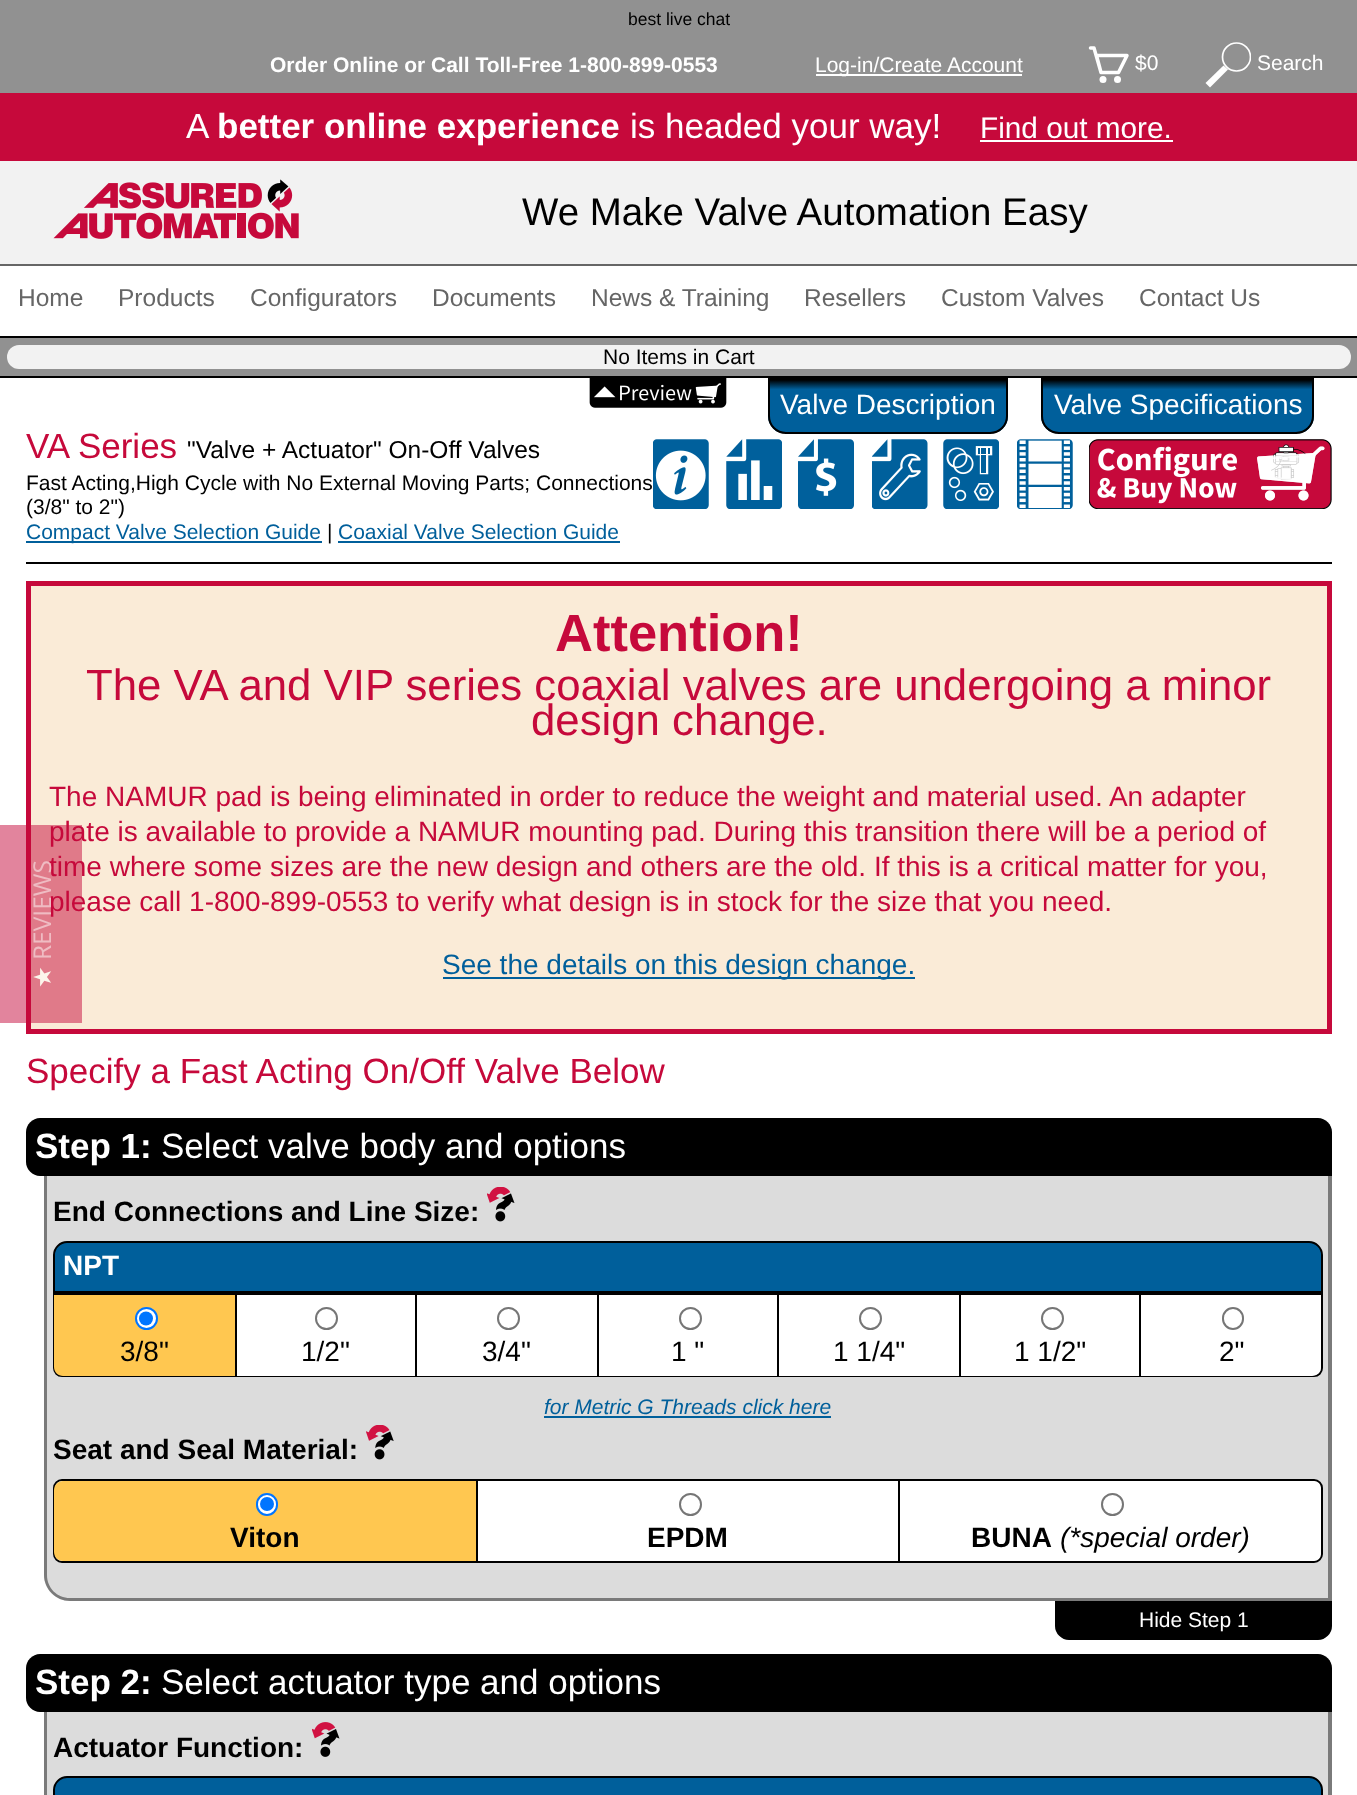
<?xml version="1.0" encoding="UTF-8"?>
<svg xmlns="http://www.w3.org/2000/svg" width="1357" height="1795">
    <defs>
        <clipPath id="clip1"><rect x="1206" y="42" width="45" height="46"/></clipPath>
        <clipPath id="clip2"><path d="M 768 378 H 1008 V 416 C 1008 426 1000 434 990 434 H 786 C 776 434 768 426 768 416 Z"/></clipPath>
        <linearGradient id="g1" gradientUnits="userSpaceOnUse" x1="888" y1="380" x2="888" y2="432"><stop offset="0" stop-color="#000000"/><stop offset="0.18" stop-color="#005F9B"/></linearGradient>
        <clipPath id="clip3"><path d="M 1041 378 H 1314 V 416 C 1314 426 1306 434 1296 434 H 1059 C 1049 434 1041 426 1041 416 Z"/></clipPath>
        <linearGradient id="g2" gradientUnits="userSpaceOnUse" x1="1178" y1="380" x2="1178" y2="432"><stop offset="0" stop-color="#000000"/><stop offset="0.18" stop-color="#005F9B"/></linearGradient>
    </defs>
    <rect width="100%" height="100%" fill="#919191"/>
    <text x="628" y="25" font-family="Liberation Sans" font-size="17.5" fill="#000000">best live chat</text>
    <text x="270" y="72" font-family="Liberation Sans" font-size="21" font-weight="700" fill="#FFFFFF">Order Online or Call Toll-Free 1-800-899-0553</text>
    <rect x="816" y="74" width="206" height="2" fill="#FFFFFF"/>
    <text x="815" y="72" font-family="Liberation Sans" font-size="21" fill="#FFFFFF">Log-in/Create Account</text>
    <path d="M 1090.5 48 H 1094 L 1101 72.5 H 1118.5 L 1127 55.5 H 1097 M 1101 72.5 H 1118.5 L 1127 55.5 H 1096.5 Z" fill="none" stroke="#FFFFFF" stroke-width="3.5" stroke-linecap="round" stroke-linejoin="round"/>
    <text x="1135" y="70" font-family="Liberation Sans" font-size="21" fill="#FFFFFF">$0</text>
    <circle cx="1103" cy="79.5" r="3.5" fill="#FFFFFF"/>
    <circle cx="1117.5" cy="79.5" r="3.5" fill="#FFFFFF"/>
    <path d="M 1205.5 83 L 1223.5 65.5 L 1228 69.5 L 1210 87.5 Z" fill="#FFFFFF"/>
    <g clip-path="url(#clip1)">
        <circle cx="1236.5" cy="57" r="14" fill="none" stroke="#FFFFFF" stroke-width="1.7"/>
    </g>
    <text x="1257" y="70" font-family="Liberation Sans" font-size="21" fill="#FFFFFF">Search</text>
    <rect x="0" y="93" width="1357" height="68" fill="#C6093B"/>
    <text x="186" y="138" font-family="Liberation Sans" font-size="35" fill="#FFFFFF">A</text>
    <text x="217" y="138" font-family="Liberation Sans" font-size="35" font-weight="700" fill="#FFFFFF">better online experience</text>
    <text x="630" y="138" font-family="Liberation Sans" font-size="35" fill="#FFFFFF">is headed your way!</text>
    <text x="980" y="138" font-family="Liberation Sans" font-size="29.75" fill="#FFFFFF">Find out more.</text>
    <rect x="980" y="140" width="193" height="2" fill="#FFFFFF"/>
    <rect x="0" y="161" width="1357" height="103" fill="#F2F2F2"/>
    <rect x="0" y="264" width="1357" height="2" fill="#666666"/>
    <image x="53" y="179" width="246" height="60" href="img_01.png"/>
    <text x="522" y="225" font-family="Liberation Sans" font-size="38.5" fill="#000000">We Make Valve Automation Easy</text>
    <rect x="0" y="266" width="1357" height="70" fill="#FFFFFF"/>
    <rect x="0" y="336" width="1357" height="2" fill="#000000"/>
    <text x="18" y="306" font-family="Liberation Sans" font-size="24.5" fill="#666666">Home</text>
    <text x="118" y="306" font-family="Liberation Sans" font-size="24.5" fill="#666666">Products</text>
    <text x="250" y="306" font-family="Liberation Sans" font-size="24.5" fill="#666666">Configurators</text>
    <text x="432" y="306" font-family="Liberation Sans" font-size="24.5" fill="#666666">Documents</text>
    <text x="591" y="306" font-family="Liberation Sans" font-size="24.5" fill="#666666">News &amp; Training</text>
    <text x="804" y="306" font-family="Liberation Sans" font-size="24.5" fill="#666666">Resellers</text>
    <text x="941" y="306" font-family="Liberation Sans" font-size="24.5" fill="#666666">Custom Valves</text>
    <text x="1139" y="306" font-family="Liberation Sans" font-size="24.5" fill="#666666">Contact Us</text>
    <rect x="0" y="376" width="1357" height="2" fill="#000000"/>
    <rect x="7" y="345" width="1344" height="24" rx="12" fill="#F2F2F2"/>
    <text x="603" y="364" font-family="Liberation Sans" font-size="21" fill="#000000">No Items in Cart</text>
    <rect x="0" y="378" width="1357" height="1417" fill="#FFFFFF"/>
    <image x="589" y="378" width="138" height="30" href="img_02.png"/>
    <g clip-path="url(#clip2)">
        <rect x="768" y="380" width="240" height="52" fill="url(#g1)"/>
    </g>
    <path d="M 769 379 H 1007 V 416 C 1007 425.5 999.5 433 990 433 H 786 C 776.5 433 769 425.5 769 416 Z" fill="none" stroke="#000000" stroke-width="2"/>
    <text x="780" y="414" font-family="Liberation Sans" font-size="28" fill="#FFFFFF">Valve Description</text>
    <g clip-path="url(#clip3)">
        <rect x="1041" y="380" width="273" height="52" fill="url(#g2)"/>
    </g>
    <path d="M 1042 379 H 1313 V 416 C 1313 425.5 1305.5 433 1296 433 H 1059 C 1049.5 433 1042 425.5 1042 416 Z" fill="none" stroke="#000000" stroke-width="2"/>
    <text x="1054" y="414" font-family="Liberation Sans" font-size="28" fill="#FFFFFF">Valve Specifications</text>
    <rect x="26" y="562" width="1306" height="2" fill="#000000"/>
    <text x="26" y="458" font-family="Liberation Sans" font-size="35" fill="#C6093B">VA Series</text>
    <text x="187" y="458" font-family="Liberation Sans" font-size="24.5" fill="#000000">"Valve + Actuator" On-Off Valves</text>
    <text font-family="Liberation Sans" font-size="21" fill="#000000">
        <tspan x="26" y="490">Fast Acting,High Cycle with No External Moving Parts; Connections</tspan>
        <tspan x="26" y="514">(3/8" to 2")</tspan>
    </text>
    <rect x="26" y="541" width="296" height="2" fill="#005F9B"/>
    <text x="26" y="539" font-family="Liberation Sans" font-size="21" fill="#005F9B">Compact Valve Selection Guide</text>
    <text x="327" y="539" font-family="Liberation Sans" font-size="21" fill="#000000">|</text>
    <text x="338" y="539" font-family="Liberation Sans" font-size="21" fill="#005F9B">Coaxial Valve Selection Guide</text>
    <rect x="338" y="541" width="282" height="2" fill="#005F9B"/>
    <image x="653" y="439" width="56" height="70" href="img_03.png"/>
    <image x="726" y="439" width="56" height="70" href="img_04.png"/>
    <image x="798" y="439" width="56" height="70" href="img_05.png"/>
    <image x="872" y="439" width="56" height="70" href="img_06.png"/>
    <image x="943" y="439" width="56" height="70" href="img_07.png"/>
    <image x="1017" y="439" width="56" height="70" href="img_08.png"/>
    <image x="1089" y="439" width="243" height="70" href="img_09.png"/>
    <rect x="28.5" y="583.5" width="1301" height="448" fill="#FAEBD7" stroke="#C6093B" stroke-width="5"/>
    <text x="555" y="651" font-family="Liberation Sans" font-size="52.5" font-weight="700" fill="#C6093B">Attention!</text>
    <text x="86" y="700" font-family="Liberation Sans" font-size="43.75" fill="#C6093B">The VA and VIP series coaxial valves are undergoing a minor</text>
    <text x="531" y="735" font-family="Liberation Sans" font-size="43.75" fill="#C6093B">design change.</text>
    <text font-family="Liberation Sans" font-size="28" fill="#C6093B">
        <tspan x="49" y="806">The NAMUR pad is being eliminated in order to reduce the weight and material used. An adapter</tspan>
        <tspan x="49" y="841">plate is available to provide a NAMUR mounting pad. During this transition there will be a period of</tspan>
        <tspan x="49" y="876">time where some sizes are the new design and others are the old. If this is a critical matter for you,</tspan>
        <tspan x="49" y="911">please call 1-800-899-0553 to verify what design is in stock for the size that you need.</tspan>
    </text>
    <rect x="443" y="977" width="472" height="2" fill="#005F9B"/>
    <text x="442" y="974" font-family="Liberation Sans" font-size="28" fill="#005F9B">See the details on this design change.</text>
    <text x="26" y="1083" font-family="Liberation Sans" font-size="35" fill="#C6093B">Specify a Fast Acting On/Off Valve Below</text>
    <path d="M 40 1118 H 1318 C 1325.5 1118 1332 1124.5 1332 1132 V 1176 H 40 C 32.5 1176 26 1169.5 26 1162 V 1132 C 26 1124.5 32.5 1118 40 1118 Z" fill="#000000"/>
    <text x="35" y="1158" font-family="Liberation Sans" font-size="35" font-weight="700" fill="#FFFFFF">Step 1:</text>
    <text x="161" y="1158" font-family="Liberation Sans" font-size="35" fill="#FFFFFF">Select valve body and options</text>
    <path d="M 44 1176 H 1332 V 1601 H 70 C 55.5 1601 44 1589.5 44 1575 Z" fill="#DCDCDC"/>
    <path d="M 44 1176 H 1332 V 1601 H 70 C 56 1601 44 1589 44 1575 Z M 47 1176 H 1328 V 1598 H 70 C 57 1598 47 1588 47 1575 Z" fill="#7A7A7A" fill-rule="evenodd"/>
    <text x="53" y="1221" font-family="Liberation Sans" font-size="28" font-weight="700" fill="#000000">End Connections and Line Size:</text>
    <image x="487" y="1187" width="28" height="35" href="img_10.png"/>
    <path d="M 67 1242 H 1309 C 1316 1242 1322 1248 1322 1255 V 1292 H 54 V 1255 C 54 1248 60 1242 67 1242 Z" fill="#005F9B" stroke="#000000" stroke-width="2"/>
    <text x="63" y="1275" font-family="Liberation Sans" font-size="28" font-weight="700" fill="#FFFFFF">NPT</text>
    <path d="M 54 1294 H 1322 V 1368 C 1322 1372.5 1318.5 1376 1314 1376 H 62 C 57.5 1376 54 1372.5 54 1368 Z" fill="none" stroke="#000000" stroke-width="2"/>
    <path d="M 54 1295 H 235 V 1376 H 63 C 58 1376 54 1372 54 1367 Z" fill="#FFC750"/>
    <circle cx="146.5" cy="1318.5" r="10.5" fill="#FFFFFF" stroke="#0075FF" stroke-width="2"/>
    <circle cx="146" cy="1318.5" r="7" fill="#0075FF"/>
    <text x="120" y="1361" font-family="Liberation Sans" font-size="28" fill="#000000">3/8"</text>
    <rect x="237" y="1295" width="178" height="81" fill="#FFFFFF"/>
    <rect x="235" y="1295" width="2" height="81" fill="#000000"/>
    <circle cx="326.5" cy="1318.5" r="10.5" fill="none" stroke="#767676" stroke-width="2"/>
    <text x="301" y="1361" font-family="Liberation Sans" font-size="28" fill="#000000">1/2"</text>
    <rect x="417" y="1295" width="180" height="81" fill="#FFFFFF"/>
    <rect x="415" y="1295" width="2" height="81" fill="#000000"/>
    <circle cx="508.5" cy="1318.5" r="10.5" fill="none" stroke="#767676" stroke-width="2"/>
    <text x="482" y="1361" font-family="Liberation Sans" font-size="28" fill="#000000">3/4"</text>
    <rect x="599" y="1295" width="178" height="81" fill="#FFFFFF"/>
    <rect x="597" y="1295" width="2" height="81" fill="#000000"/>
    <circle cx="690.5" cy="1318.5" r="10.5" fill="none" stroke="#767676" stroke-width="2"/>
    <text x="671" y="1361" font-family="Liberation Sans" font-size="28" fill="#000000">1 "</text>
    <rect x="779" y="1295" width="180" height="81" fill="#FFFFFF"/>
    <rect x="777" y="1295" width="2" height="81" fill="#000000"/>
    <circle cx="870.5" cy="1318.5" r="10.5" fill="none" stroke="#767676" stroke-width="2"/>
    <text x="833" y="1361" font-family="Liberation Sans" font-size="28" fill="#000000">1 1/4"</text>
    <rect x="961" y="1295" width="178" height="81" fill="#FFFFFF"/>
    <rect x="959" y="1295" width="2" height="81" fill="#000000"/>
    <circle cx="1052.5" cy="1318.5" r="10.5" fill="none" stroke="#767676" stroke-width="2"/>
    <text x="1014" y="1361" font-family="Liberation Sans" font-size="28" fill="#000000">1 1/2"</text>
    <path d="M 1139 1295 H 1321 V 1367 C 1321 1372 1317 1376 1312 1376 H 1139 Z" fill="#FFFFFF"/>
    <rect x="1139" y="1295" width="2" height="81" fill="#000000"/>
    <rect x="1223" y="1308" width="20" height="21" rx="10" fill="none" stroke="#767676" stroke-width="2"/>
    <text x="1219" y="1361" font-family="Liberation Sans" font-size="28" fill="#000000">2"</text>
    <text x="544" y="1414" font-family="Liberation Sans" font-size="21" font-style="italic" fill="#005F9B">for Metric G Threads click here</text>
    <rect x="544" y="1416" width="287" height="2" fill="#005F9B"/>
    <text x="53" y="1459" font-family="Liberation Sans" font-size="28" font-weight="700" fill="#000000">Seat and Seal Material:</text>
    <image x="366" y="1425" width="28" height="35" href="img_11.png"/>
    <rect x="54" y="1480" width="1268" height="82" rx="8" fill="#FFFFFF" stroke="#000000" stroke-width="2"/>
    <path d="M 63 1481 H 476 V 1561 H 63 C 58 1561 54 1557 54 1552 V 1490 C 54 1485 58 1481 63 1481 Z" fill="#FFC750"/>
    <rect x="257" y="1494" width="20" height="21" rx="10" fill="#FFFFFF" stroke="#0075FF" stroke-width="2"/>
    <circle cx="267" cy="1504" r="7" fill="#0075FF"/>
    <text x="230" y="1547" font-family="Liberation Sans" font-size="28" font-weight="700" fill="#000000">Viton</text>
    <rect x="476" y="1481" width="2" height="80" fill="#000000"/>
    <circle cx="690.5" cy="1504.5" r="10.5" fill="none" stroke="#767676" stroke-width="2"/>
    <text x="647" y="1547" font-family="Liberation Sans" font-size="28" font-weight="700" fill="#000000">EPDM</text>
    <path d="M 898 1481 H 1312 C 1317 1481 1321 1485 1321 1490 V 1552 C 1321 1557 1317 1561 1312 1561 H 898 Z" fill="#FFFFFF"/>
    <rect x="898" y="1481" width="2" height="80" fill="#000000"/>
    <circle cx="1112.5" cy="1504.5" r="10.5" fill="none" stroke="#767676" stroke-width="2"/>
    <text x="971" y="1547" font-family="Liberation Sans" font-size="28" font-weight="700" fill="#000000">BUNA</text>
    <text x="1060" y="1547" font-family="Liberation Sans" font-size="28" font-style="italic" fill="#000000">(*special order)</text>
    <path d="M 1056 1602 H 1331 V 1626 C 1331 1633 1325 1639 1318 1639 H 1069 C 1062 1639 1056 1633 1056 1626 Z" fill="#000000" stroke="#000000" stroke-width="2"/>
    <text x="1139" y="1627" font-family="Liberation Sans" font-size="21" fill="#FFFFFF">Hide Step 1</text>
    <path d="M 40 1654 H 1318 C 1325.5 1654 1332 1660.5 1332 1668 V 1712 H 40 C 32.5 1712 26 1705.5 26 1698 V 1668 C 26 1660.5 32.5 1654 40 1654 Z" fill="#000000"/>
    <text x="35" y="1694" font-family="Liberation Sans" font-size="35" font-weight="700" fill="#FFFFFF">Step 2:</text>
    <text x="161" y="1694" font-family="Liberation Sans" font-size="35" fill="#FFFFFF">Select actuator type and options</text>
    <rect x="47" y="1712" width="1281" height="83" fill="#DCDCDC"/>
    <path d="M 44 1712 H 1332 V 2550 H 70 C 56 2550 44 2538 44 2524 Z M 47 1712 H 1328 V 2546 H 70 C 57 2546 47 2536 47 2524 Z" fill="#7A7A7A" fill-rule="evenodd"/>
    <text x="53" y="1757" font-family="Liberation Sans" font-size="28" font-weight="700" fill="#000000">Actuator Function:</text>
    <image x="312" y="1722" width="28" height="35" href="img_12.png"/>
    <path d="M 67 1777 H 1309 C 1316 1777 1322 1783 1322 1790 V 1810 H 54 V 1790 C 54 1783 60 1777 67 1777 Z" fill="#005F9B" stroke="#000000" stroke-width="2"/>
    <rect x="0" y="825" width="82" height="198" fill="#C6093B" fill-opacity="0.5"/>
    <text x="51" y="960" transform="rotate(-90 51 960)" font-family="Open Sans" font-size="24.5" fill="#EFBCC3">REVIEWS</text>
    <text x="51" y="988" transform="rotate(-90 51 988)" font-family="DejaVu Sans" font-size="24.5" fill="#FCF5EB">★</text>
</svg>
